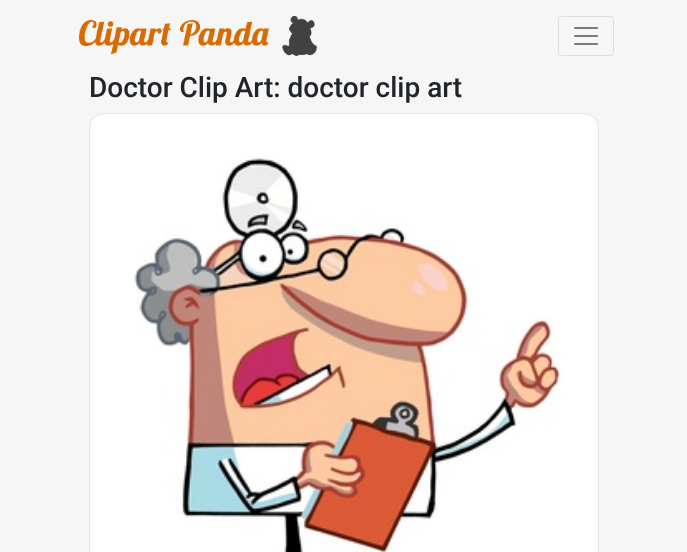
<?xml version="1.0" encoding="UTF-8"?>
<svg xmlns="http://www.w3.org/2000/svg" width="687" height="552">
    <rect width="100%" height="100%" fill="#F6F6F6"/>
    <image x="79" y="16" width="239" height="40" href="img_01.png"/>
    <rect x="558.5" y="16.5" width="55" height="39" rx="3.5" fill="none" stroke="#DDDDDD"/>
    <image x="574" y="27" width="24" height="18" href="img_02.png"/>
    <text x="89" y="97" font-family="Roboto" font-size="28" font-weight="500" fill="#212529">Doctor Clip Art: doctor clip art</text>
    <rect x="89.5" y="113.5" width="509" height="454" rx="14.5" fill="#FFFFFF" stroke="#E3E3E3"/>
    <image x="134" y="156" width="428" height="396" href="img_03.png"/>
</svg>
